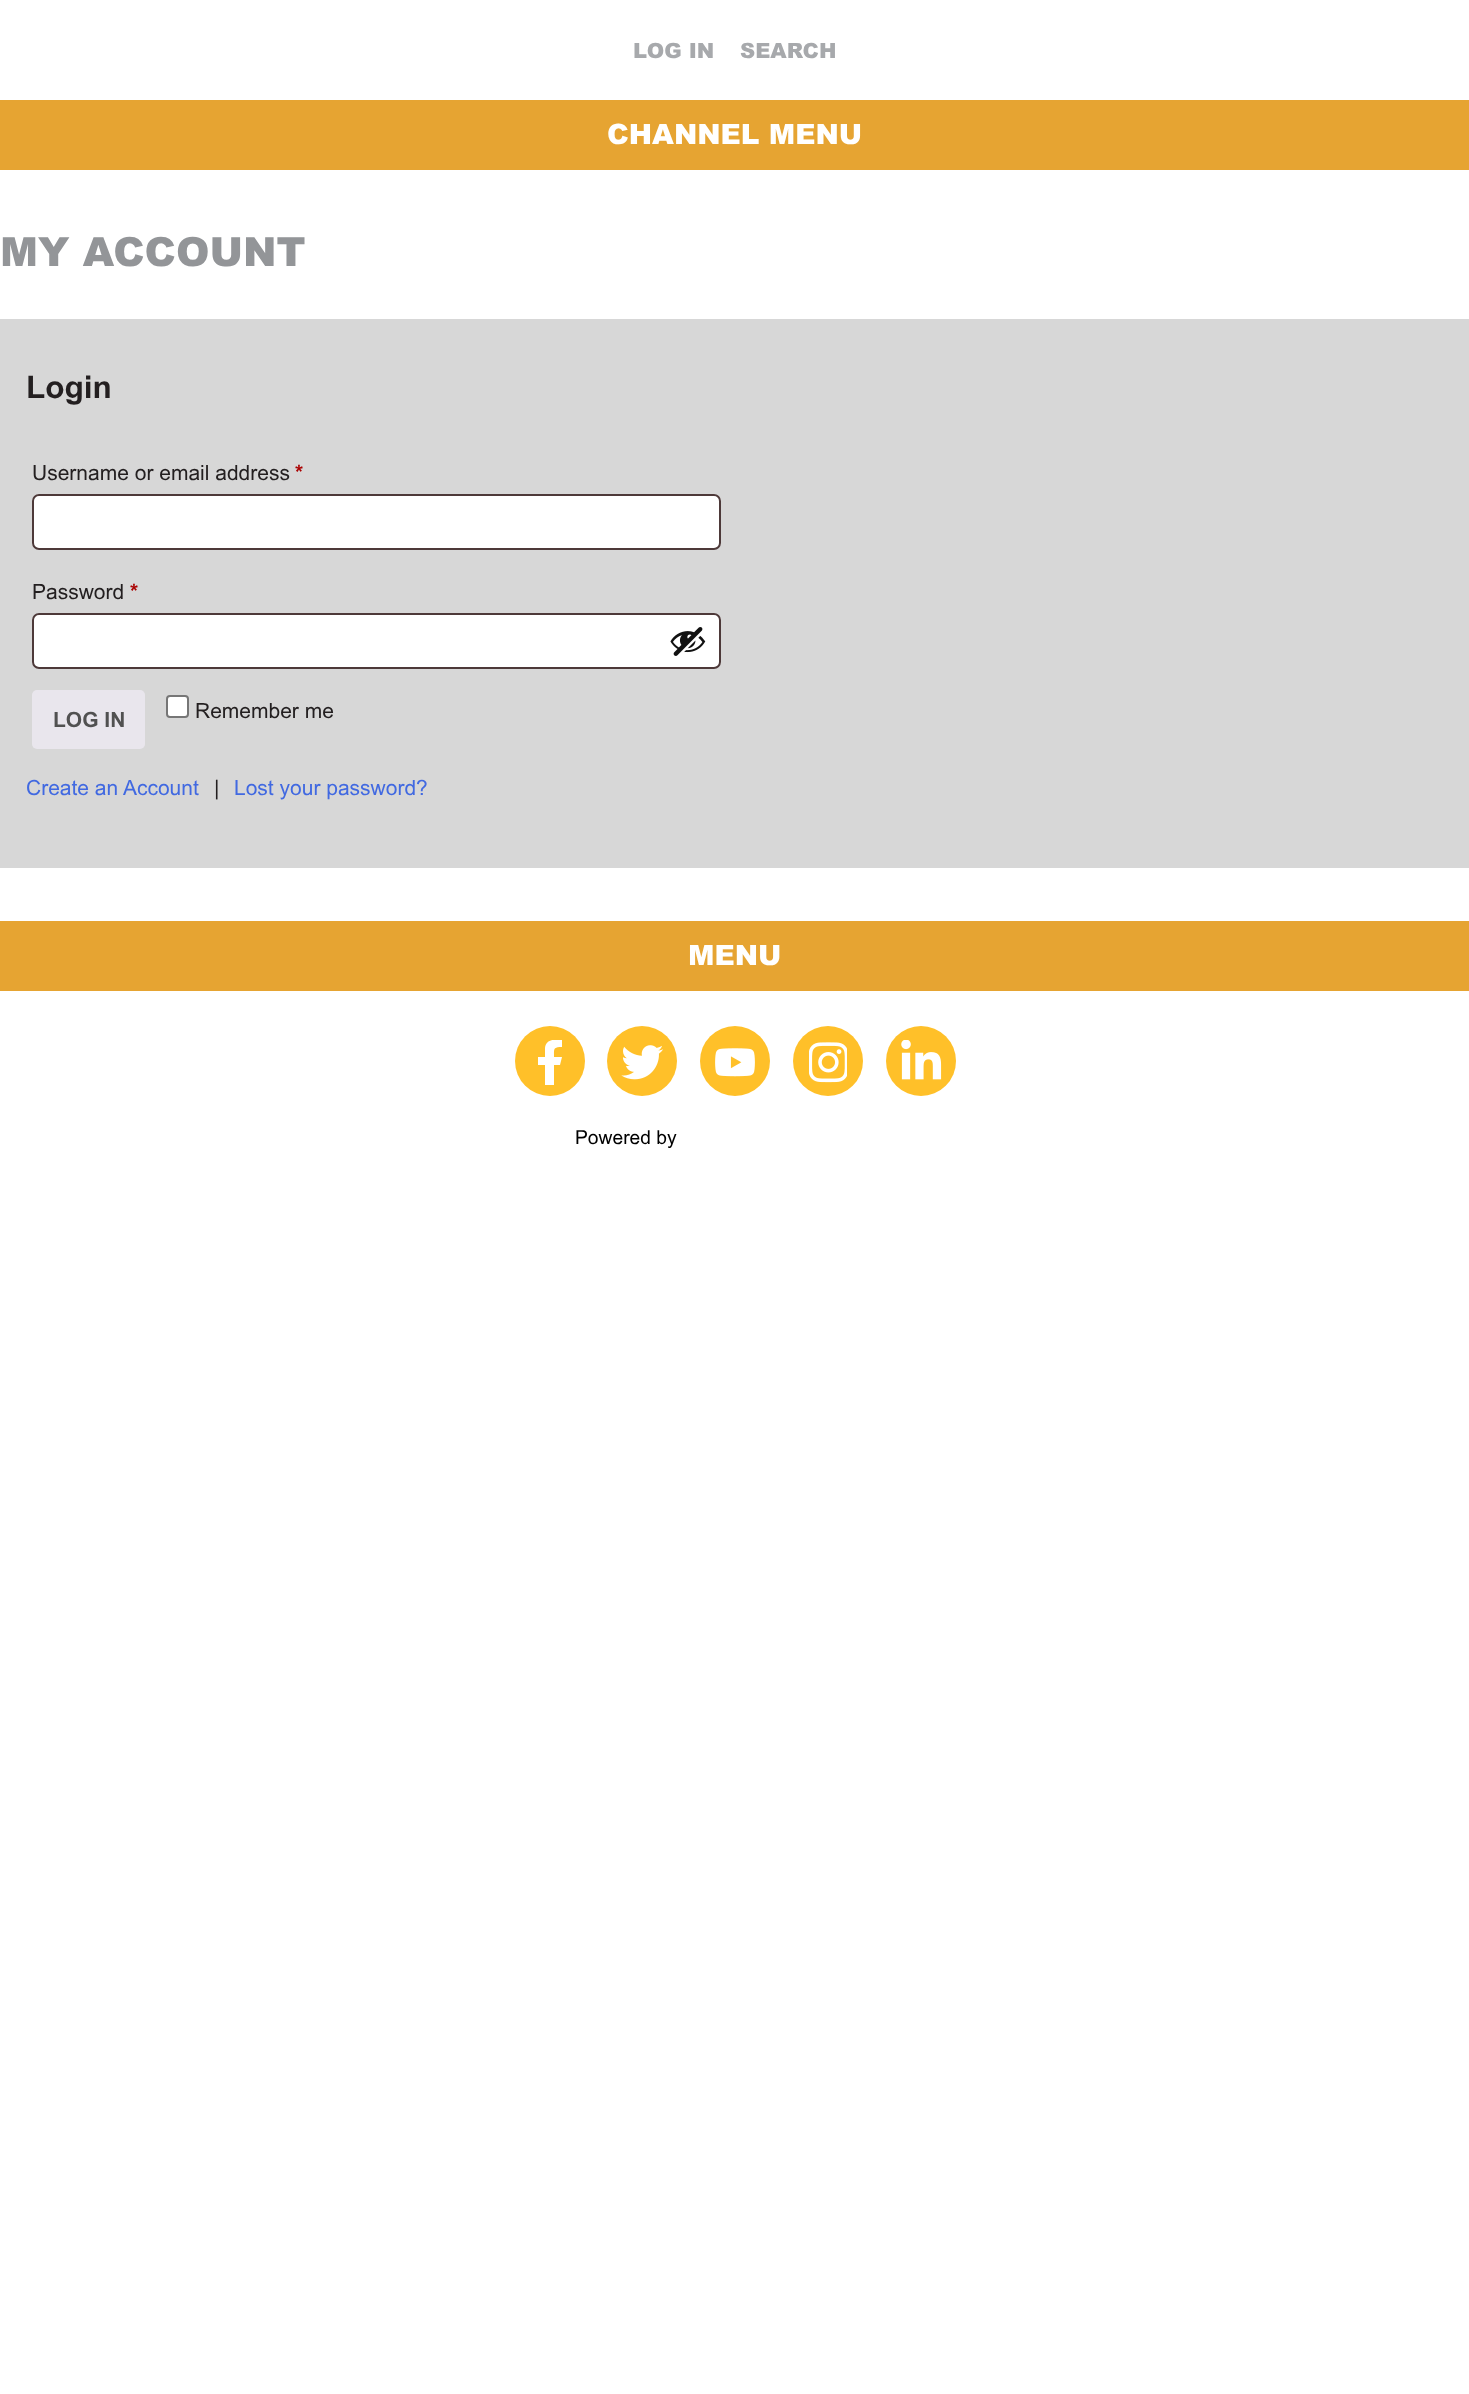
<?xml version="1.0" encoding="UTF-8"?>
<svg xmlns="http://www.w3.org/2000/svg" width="1469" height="2394">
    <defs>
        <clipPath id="clip1"><rect x="536" y="1040" width="28" height="45"/></clipPath>
    </defs>
    <rect width="100%" height="100%" fill="#FFFFFF"/>
    <text x="633" y="58" font-family="Arial" font-size="21" font-weight="900" fill="#A7A9AC">LOG IN</text>
    <text x="740" y="58" font-family="Arial" font-size="21" font-weight="900" fill="#A7A9AC">SEARCH</text>
    <rect x="0" y="100" width="1469" height="70" fill="#E6A432"/>
    <text x="607" y="144" font-family="Arial" font-size="28" font-weight="900" fill="#FFFFFF">CHANNEL MENU</text>
    <text x="0" y="266" font-family="Arial" font-size="40.25" font-weight="900" fill="#939598">MY ACCOUNT</text>
    <rect x="0" y="319" width="1469" height="549" fill="#D7D7D7"/>
    <text x="26" y="398" font-family="Arial" font-size="31.5" font-weight="700" fill="#231F20">Login</text>
    <text x="32" y="480" font-family="Arial" font-size="21" fill="#231F20">Username or email address</text>
    <text x="295" y="480" font-family="Arial" font-size="21" font-weight="700" fill="#AA0000">*</text>
    <rect x="32" y="494" width="689" height="56" rx="7" fill="#FFFFFF"/>
    <rect x="33" y="495" width="687" height="54" rx="6" fill="none" stroke="#200707" stroke-opacity="0.8" stroke-width="2"/>
    <text x="32" y="599" font-family="Arial" font-size="21" fill="#231F20">Password</text>
    <text x="130" y="599" font-family="Arial" font-size="21" font-weight="700" fill="#AA0000">*</text>
    <rect x="32" y="613" width="689" height="56" rx="7" fill="#FFFFFF"/>
    <rect x="33" y="614" width="687" height="54" rx="6" fill="none" stroke="#200707" stroke-opacity="0.8" stroke-width="2"/>
    <image x="670" y="627" width="36" height="29" href="img_01.png"/>
    <rect x="32" y="690" width="113" height="59" rx="5" fill="#E9E6ED"/>
    <text x="53" y="727" font-family="Arial" font-size="21" font-weight="700" fill="#515151">LOG IN</text>
    <rect x="167" y="696" width="21" height="21" rx="3" fill="#FFFFFF" stroke="#767676" stroke-width="2"/>
    <text x="195" y="718" font-family="Arial" font-size="21" fill="#231F20">Remember me</text>
    <text x="26" y="795" font-family="Arial" font-size="21" fill="#4169E1">Create an Account</text>
    <text x="214" y="795" font-family="Arial" font-size="21" fill="#231F20">|</text>
    <text x="234" y="795" font-family="Arial" font-size="21" fill="#4169E1">Lost your password?</text>
    <rect x="0" y="921" width="1469" height="70" fill="#E6A432"/>
    <text x="688" y="965" font-family="Arial" font-size="28" font-weight="900" fill="#FFFFFF">MENU</text>
    <circle cx="550" cy="1061" r="35" fill="#FFC029"/>
    <g clip-path="url(#clip1)">
        <path d="M 560 1065 L 562 1057 H 554 C 554 1049 553 1047 562 1047 V 1040 C 555 1039 546 1039 545 1048 V 1057 H 538 V 1065 H 545 V 1085 H 554 V 1065 Z" fill="#FFFFFF"/>
    </g>
    <circle cx="642" cy="1061" r="35" fill="#FFC029"/>
    <image x="621" y="1045" width="42" height="35" href="img_02.png"/>
    <circle cx="735" cy="1061" r="35" fill="#FFC029"/>
    <image x="715" y="1048" width="40" height="29" href="img_03.png"/>
    <circle cx="828" cy="1061" r="35" fill="#FFC029"/>
    <image x="809" y="1042" width="38" height="41" href="img_04.png"/>
    <circle cx="921" cy="1061" r="35" fill="#FFC029"/>
    <image x="901" y="1040" width="41" height="40" href="img_05.png"/>
    <text x="575" y="1144" font-family="Arial" font-size="19.25" fill="#000000">Powered by</text>
</svg>
